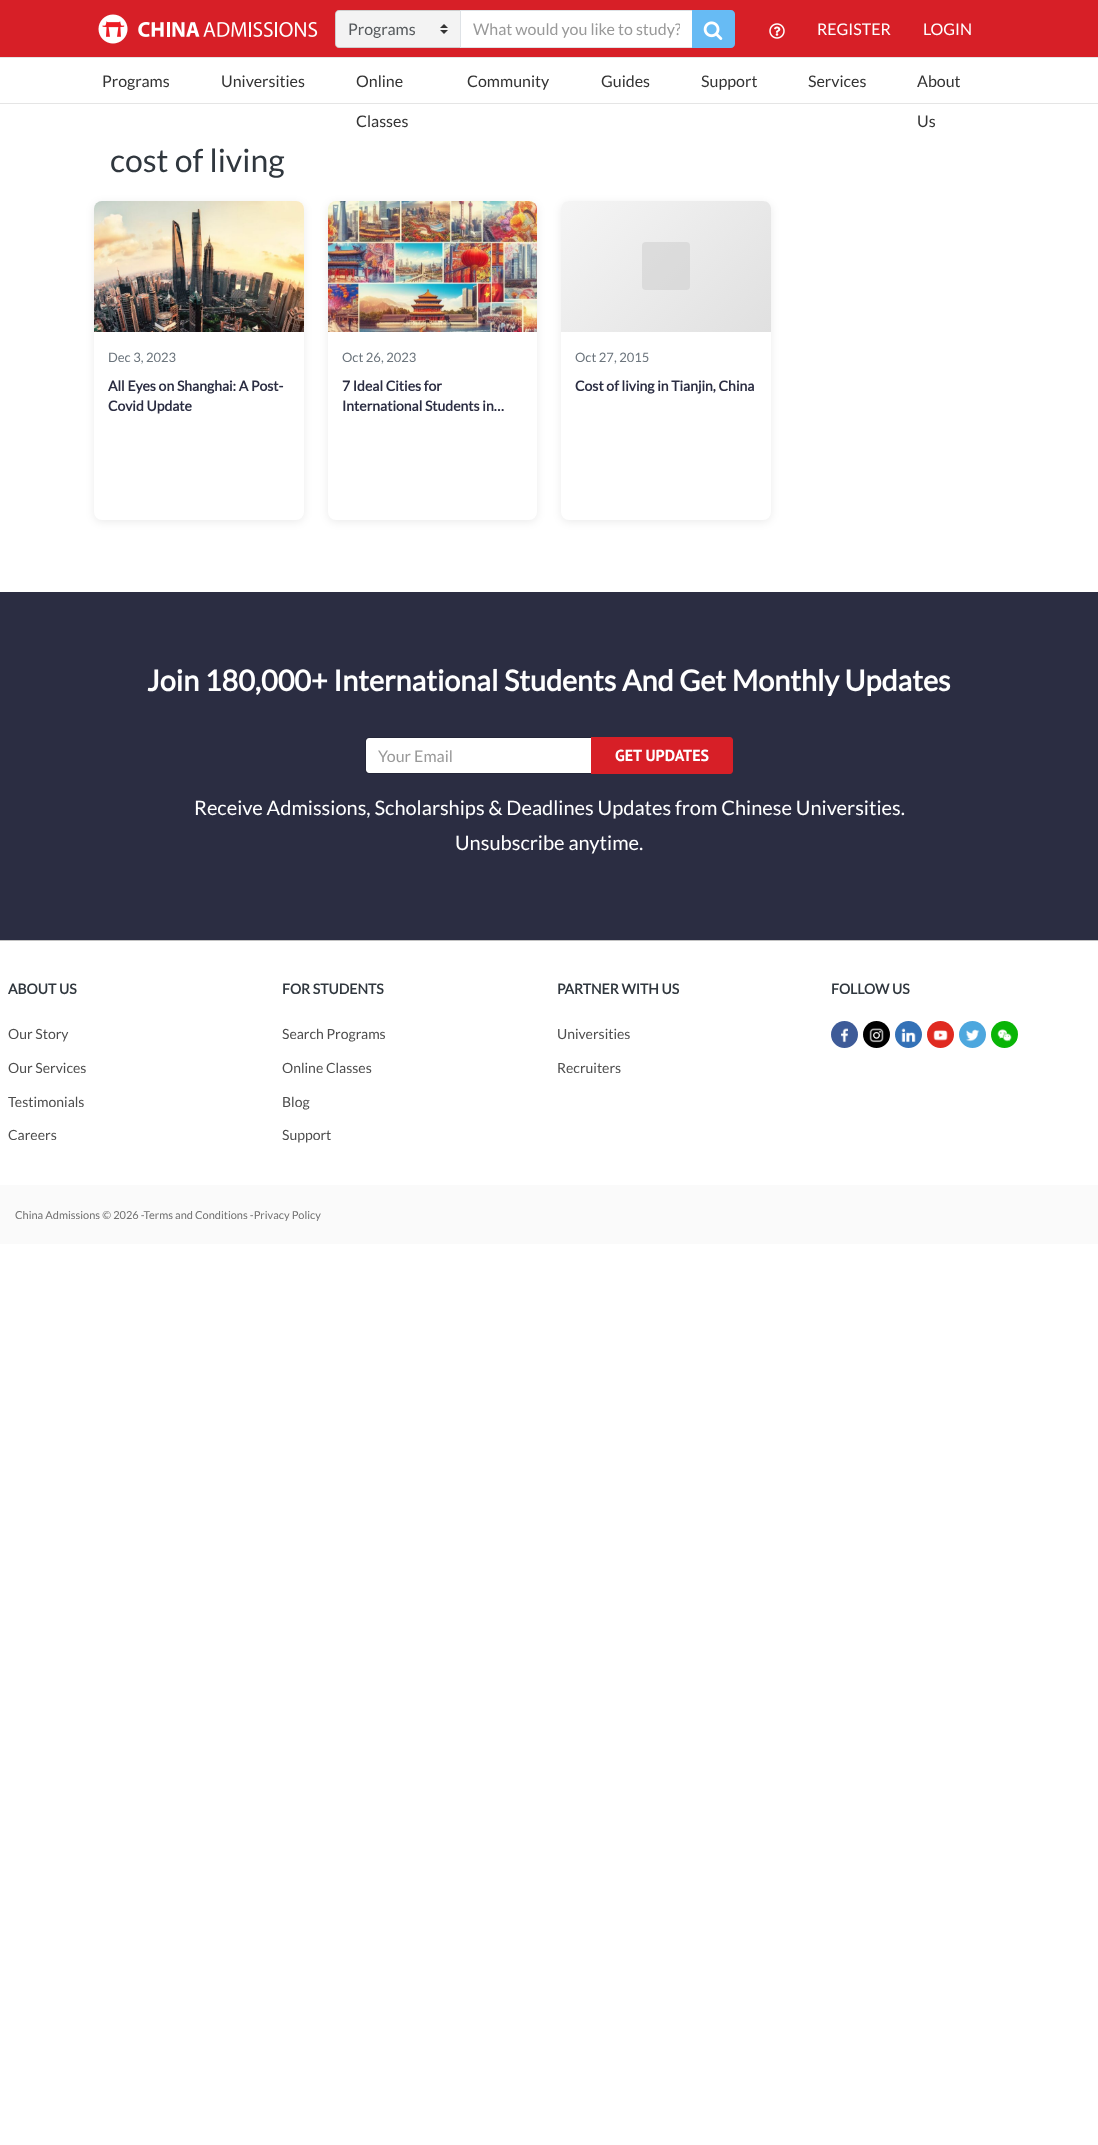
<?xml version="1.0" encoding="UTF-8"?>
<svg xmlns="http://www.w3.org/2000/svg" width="1098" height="2145">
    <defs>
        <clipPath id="clip1"><rect x="473" y="19" width="207" height="19"/></clipPath>
        <filter id="blur1" x="-50%" y="-200%" width="200%" height="500%"><feGaussianBlur stdDeviation="4"/></filter>
        <linearGradient id="g1" gradientUnits="userSpaceOnUse" x1="581" y1="181" x2="751" y2="352"><stop offset="0" stop-color="#F5F5F5"/><stop offset="1" stop-color="#E0E0E0"/></linearGradient>
    </defs>
    <rect width="100%" height="100%" fill="#FFFFFF"/>
    <rect x="0" y="0" width="1098" height="57" fill="#D71F27"/>
    <image x="98" y="14" width="220" height="30" href="img_01.png"/>
    <path d="M 339 10 H 461 V 48 H 339 C 337 48 335 46 335 44 V 14 C 335 12 337 10 339 10 Z" fill="#F3F3F3"/>
    <image x="440" y="24" width="8" height="10" href="img_02.png"/>
    <path d="M 339 10.5 H 460.5 V 47.5 H 339 C 337 47.5 335.5 46 335.5 44 V 14 C 335.5 12 337 10.5 339 10.5 Z" fill="none" stroke="#000000" stroke-opacity="0.15"/>
    <text x="348" y="35" font-family="Lato" font-size="16" fill="#55595C">Programs</text>
    <path d="M 691 10 H 731 C 733 10 735 12 735 14 V 44 C 735 46 733 48 731 48 H 691 Z" fill="#67BBF4"/>
    <rect x="461" y="11" width="231" height="36" fill="#FFFFFF"/>
    <rect x="460" y="10" width="232" height="1" fill="#DEE2E6"/>
    <rect x="460" y="47" width="232" height="1" fill="#DEE2E6"/>
    <rect x="460" y="10" width="1" height="38" fill="#DEE2E6"/>
    <g clip-path="url(#clip1)">
        <text x="473" y="35" font-family="Lato" font-size="16" fill="#999999">What would you like to study?</text>
    </g>
    <image x="703" y="21" width="20" height="19" href="img_03.png"/>
    <image x="769" y="23" width="16" height="16" href="img_04.png"/>
    <text x="817" y="35" font-family="Lato" font-size="16" fill="#FFFFFF">REGISTER</text>
    <text x="923" y="35" font-family="Lato" font-size="16" fill="#FFFFFF">LOGIN</text>
    <rect x="0" y="57" width="1098" height="1" fill="#E5E5E5"/>
    <rect x="0" y="103" width="1098" height="1" fill="#E5E5E5"/>
    <text x="102" y="87" font-family="Lato" font-size="16" fill="#333333">Programs</text>
    <text x="221" y="87" font-family="Lato" font-size="16" fill="#333333">Universities</text>
    <text x="356" y="87" font-family="Lato" font-size="16" fill="#333333">Online</text>
    <text x="356" y="127" font-family="Lato" font-size="16" fill="#333333">Classes</text>
    <text x="467" y="87" font-family="Lato" font-size="16" fill="#333333">Community</text>
    <text x="601" y="87" font-family="Lato" font-size="16" fill="#333333">Guides</text>
    <text x="701" y="87" font-family="Lato" font-size="16" fill="#333333">Support</text>
    <text x="808" y="87" font-family="Lato" font-size="16" fill="#333333">Services</text>
    <text x="917" y="87" font-family="Lato" font-size="16" fill="#333333">About</text>
    <text x="917" y="127" font-family="Lato" font-size="16" fill="#333333">Us</text>
    <text x="110" y="172" font-family="Lato" font-size="32" fill="#30373E">cost of living</text>
    <rect x="94" y="203" width="210" height="319" rx="8" fill="#000000" fill-opacity="0.08" filter="url(#blur1)"/>
    <rect x="94" y="201" width="210" height="319" rx="8" fill="#FFFFFF"/>
    <image x="94" y="201" width="210" height="131" href="img_05.png"/>
    <text x="108" y="362" font-family="Lato" font-size="13" fill="#6C757D">Dec 3, 2023</text>
    <text font-family="Lato" font-size="14" font-weight="700" fill="#2B2D42">
        <tspan x="108" y="391">All Eyes on Shanghai: A Post-</tspan>
        <tspan x="108" y="411">Covid Update</tspan>
    </text>
    <rect x="328" y="203" width="209" height="319" rx="8" fill="#000000" fill-opacity="0.08" filter="url(#blur1)"/>
    <rect x="328" y="201" width="209" height="319" rx="8" fill="#FFFFFF"/>
    <image x="328" y="201" width="209" height="131" href="img_06.png"/>
    <text x="342" y="362" font-family="Lato" font-size="13" fill="#6C757D">Oct 26, 2023</text>
    <text font-family="Lato" font-size="14" font-weight="700" fill="#2B2D42">
        <tspan x="342" y="391">7 Ideal Cities for</tspan>
        <tspan x="342" y="411">International Students in…</tspan>
    </text>
    <rect x="561" y="203" width="210" height="319" rx="8" fill="#000000" fill-opacity="0.08" filter="url(#blur1)"/>
    <rect x="561" y="201" width="210" height="319" rx="8" fill="#FFFFFF"/>
    <path d="M 569 201 H 763 C 767.5 201 771 204.5 771 209 V 332 H 561 V 209 C 561 204.5 564.5 201 569 201 Z" fill="url(#g1)"/>
    <rect x="642" y="242" width="48" height="48" rx="4" fill="#CCCCCC" fill-opacity="0.5"/>
    <text x="575" y="362" font-family="Lato" font-size="13" fill="#6C757D">Oct 27, 2015</text>
    <text x="575" y="391" font-family="Lato" font-size="14" font-weight="700" fill="#2B2D42">Cost of living in Tianjin, China</text>
    <rect x="0" y="592" width="1098" height="348" fill="#2B2D42"/>
    <text x="147" y="691" font-family="Lato" font-size="28.8" font-weight="700" fill="#FFFFFF">Join 180,000+ International Students And Get Monthly Updates</text>
    <path d="M 369 738 H 591 V 773 H 369 C 367.5 773 366 771.5 366 770 V 741 C 366 739.5 367.5 738 369 738 Z" fill="#FFFFFF"/>
    <path d="M 369 737.5 H 591.5 V 773.5 H 369 C 367 773.5 365.5 772 365.5 770 V 741 C 365.5 739 367 737.5 369 737.5 Z" fill="none" stroke="#000000" stroke-opacity="0.15"/>
    <text x="378" y="762" font-family="Lato" font-size="16" fill="#999999">Your Email</text>
    <path d="M 591 737 H 730 C 731.5 737 733 738.5 733 740 V 771 C 733 772.5 731.5 774 730 774 H 591 Z" fill="#D71F27"/>
    <text x="615" y="761" font-family="PT Sans" font-size="16" font-weight="700" fill="#FFFFFF">GET UPDATES</text>
    <text x="194" y="815" font-family="Lato" font-size="20" fill="#FFFFFF">Receive Admissions, Scholarships &amp; Deadlines Updates from Chinese Universities.</text>
    <text x="455" y="850" font-family="Lato" font-size="20" fill="#FFFFFF">Unsubscribe anytime.</text>
    <rect x="0" y="940" width="1098" height="1" fill="#C2C2C2"/>
    <text x="8" y="994" font-family="Lato" font-size="14" font-weight="700" fill="#30373E">ABOUT US</text>
    <text x="8" y="1039" font-family="Lato" font-size="14" fill="#4D4D4D">Our Story</text>
    <text x="8" y="1073" font-family="Lato" font-size="14" fill="#4D4D4D">Our Services</text>
    <text x="8" y="1107" font-family="Lato" font-size="14" fill="#4D4D4D">Testimonials</text>
    <text x="8" y="1140" font-family="Lato" font-size="14" fill="#4D4D4D">Careers</text>
    <text x="282" y="994" font-family="Lato" font-size="14" font-weight="700" fill="#30373E">FOR STUDENTS</text>
    <text x="282" y="1039" font-family="Lato" font-size="14" fill="#4D4D4D">Search Programs</text>
    <text x="282" y="1073" font-family="Lato" font-size="14" fill="#4D4D4D">Online Classes</text>
    <text x="282" y="1107" font-family="Lato" font-size="14" fill="#4D4D4D">Blog</text>
    <text x="282" y="1140" font-family="Lato" font-size="14" fill="#4D4D4D">Support</text>
    <text x="557" y="994" font-family="Lato" font-size="14" font-weight="700" fill="#30373E">PARTNER WITH US</text>
    <text x="557" y="1039" font-family="Lato" font-size="14" fill="#4D4D4D">Universities</text>
    <text x="557" y="1073" font-family="Lato" font-size="14" fill="#4D4D4D">Recruiters</text>
    <text x="831" y="994" font-family="Lato" font-size="14" font-weight="700" fill="#30373E">FOLLOW US</text>
    <image x="831" y="1021" width="27" height="27" href="img_07.png"/>
    <image x="863" y="1021" width="27" height="27" href="img_08.png"/>
    <image x="895" y="1021" width="27" height="27" href="img_09.png"/>
    <image x="927" y="1021" width="27" height="27" href="img_10.png"/>
    <image x="959" y="1021" width="27" height="27" href="img_11.png"/>
    <image x="991" y="1021" width="27" height="27" href="img_12.png"/>
    <rect x="0" y="1185" width="1098" height="59" fill="#FAFAFA"/>
    <text x="15" y="1219" font-family="Lato" font-size="11" fill="#707070">China Admissions © 2026 -Terms and Conditions -Privacy Policy</text>
</svg>
